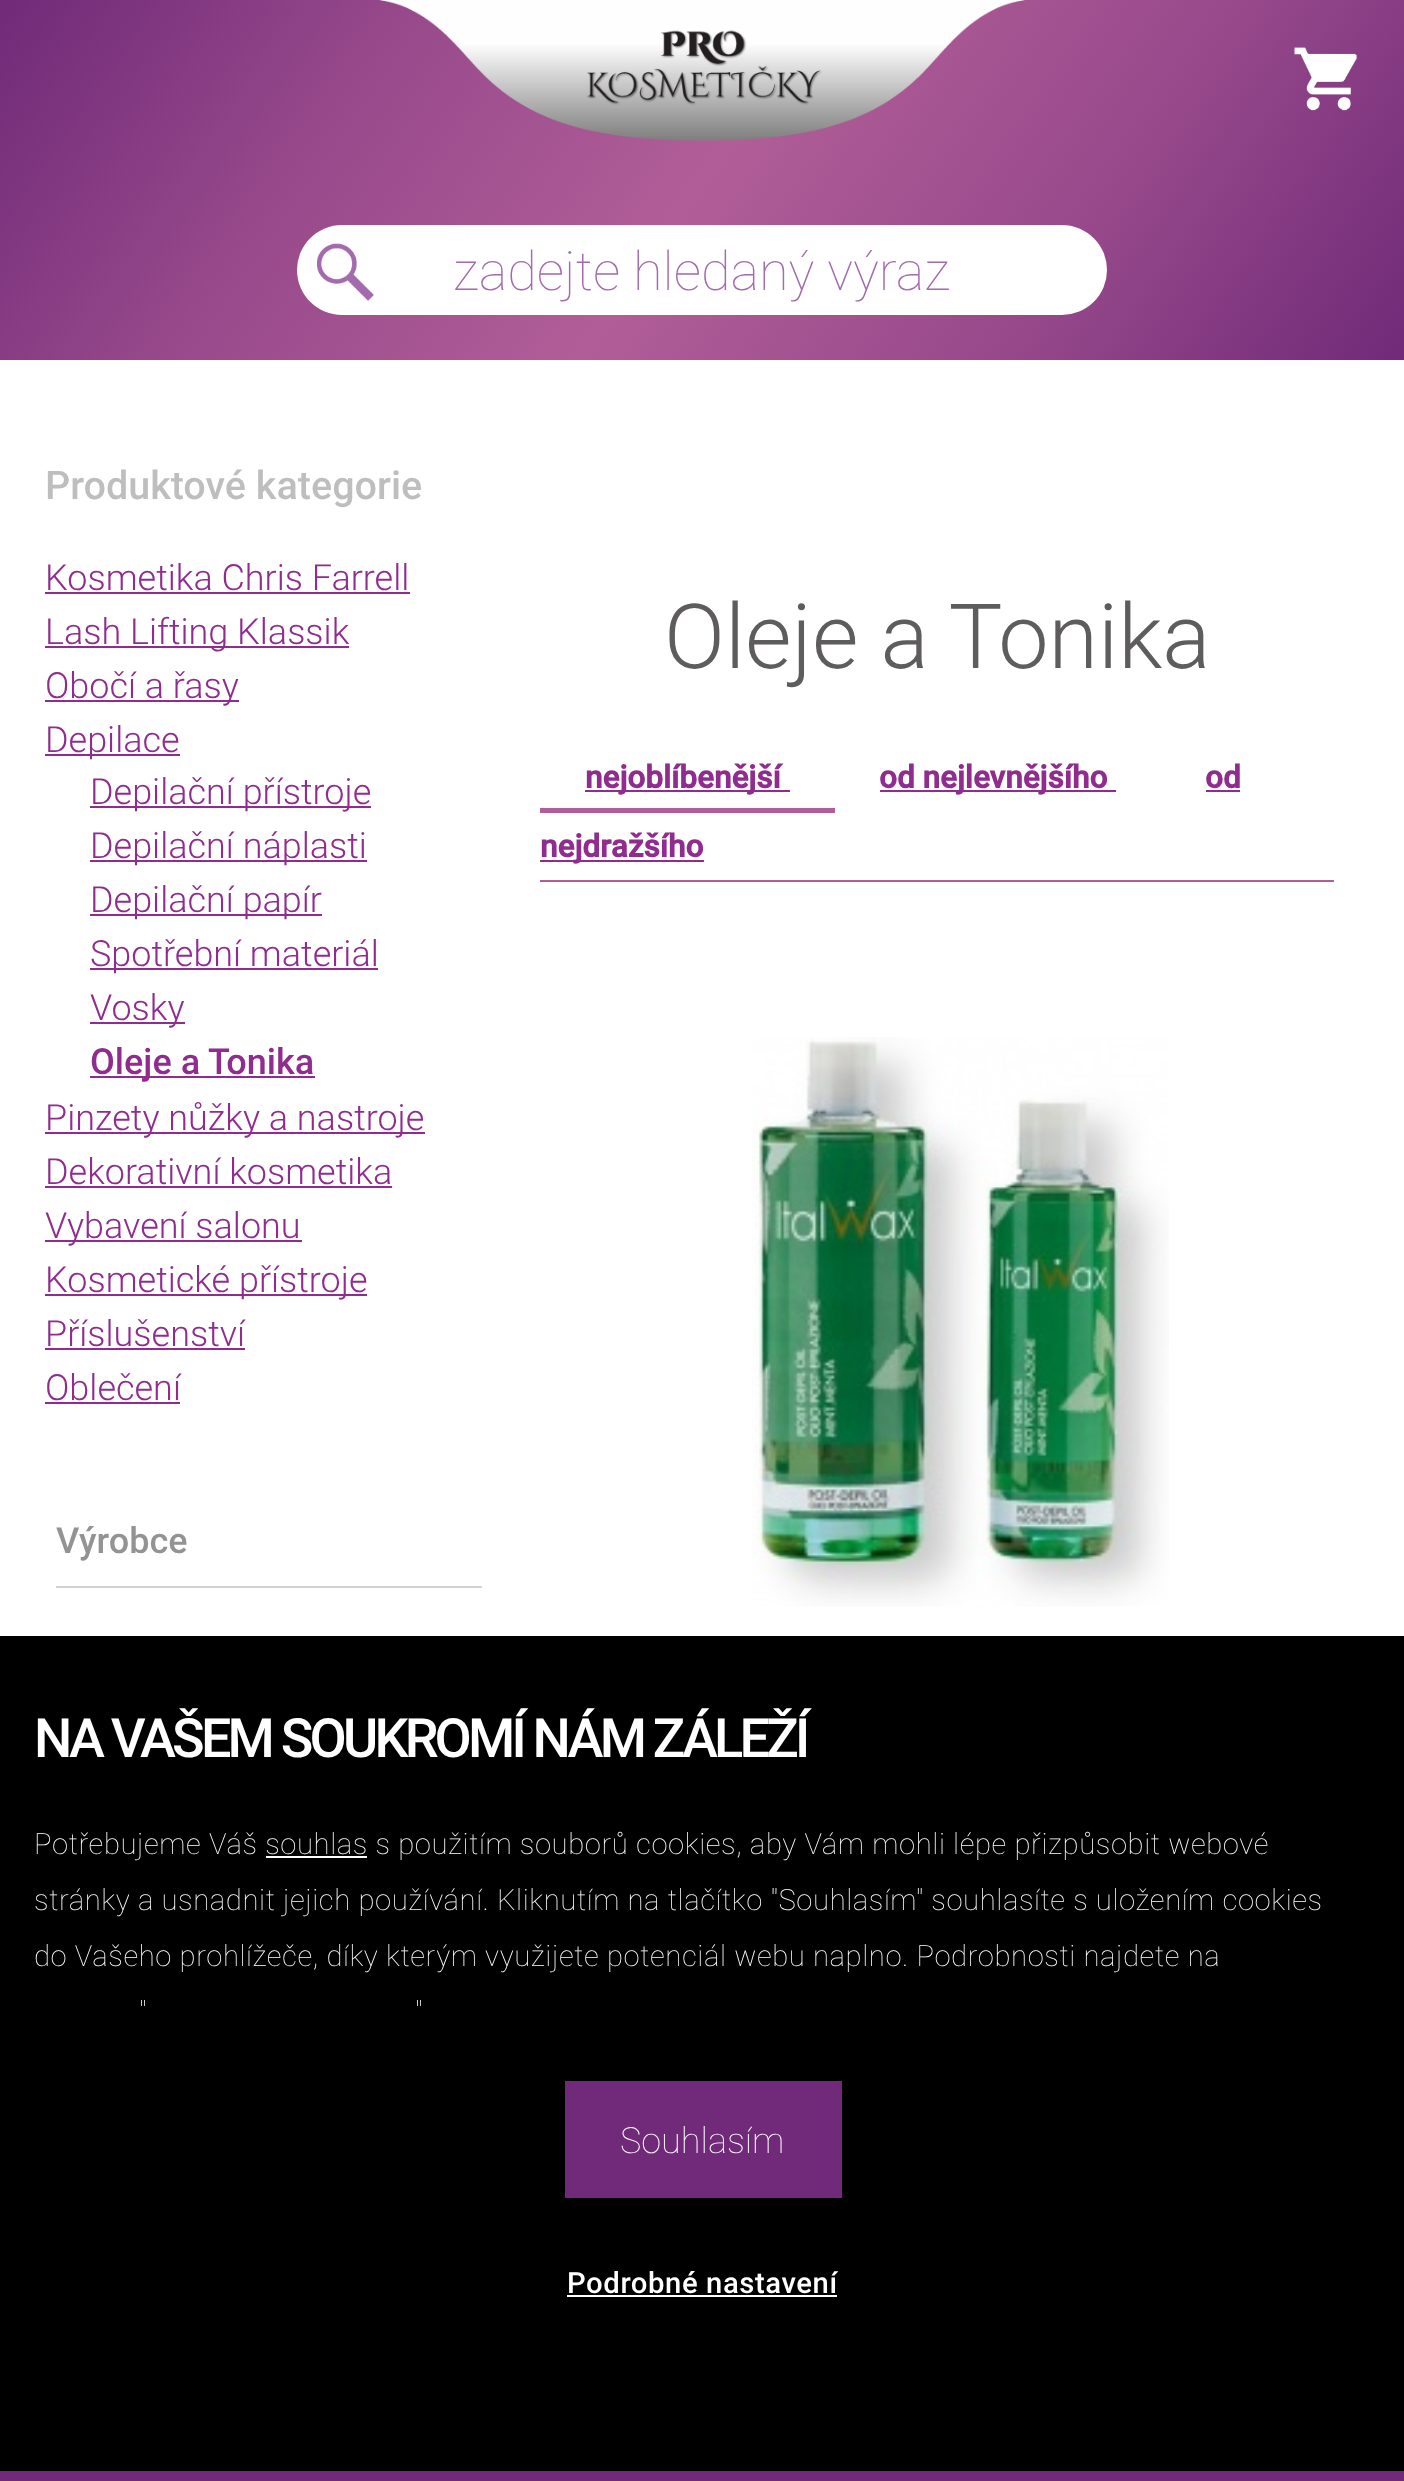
<?xml version="1.0" encoding="UTF-8"?>
<svg xmlns="http://www.w3.org/2000/svg" width="1404" height="2481">
    <defs>
        <linearGradient id="g1" gradientUnits="userSpaceOnUse" x1="1258" y1="569" x2="146" y2="-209"><stop offset="0" stop-color="#702A78"/><stop offset="0.25" stop-color="#97498B"/><stop offset="0.5" stop-color="#B15E98"/><stop offset="0.75" stop-color="#97498B"/><stop offset="1" stop-color="#702A78"/></linearGradient>
    </defs>
    <rect width="100%" height="100%" fill="#FFFFFF"/>
    <rect x="0" y="0" width="1404" height="360" fill="url(#g1)"/>
    <image x="379" y="0" width="646" height="141" href="img_01.png"/>
    <image x="1294" y="47" width="63" height="64" href="img_02.png"/>
    <rect x="297" y="225" width="810" height="90" rx="45" fill="#FFFFFF"/>
    <image x="317" y="243" width="57" height="58" href="img_03.png"/>
    <text x="453" y="290" font-family="Roboto" font-size="54" font-weight="100" fill="#A36AAD">zadejte hledaný výraz</text>
    <text x="45" y="499" font-family="Roboto" font-size="39.5" font-weight="500" fill="#BEBEBE">Produktové kategorie</text>
    <text x="45" y="590" font-family="Roboto" font-size="36" font-weight="300" fill="#902C8E">Kosmetika Chris Farrell</text>
    <rect x="45" y="592" width="365" height="2" fill="#902C8E"/>
    <rect x="45" y="646" width="304" height="2" fill="#902C8E"/>
    <text x="45" y="644" font-family="Roboto" font-size="36" font-weight="300" fill="#902C8E">Lash Lifting Klassik</text>
    <rect x="45" y="700" width="194" height="2" fill="#902C8E"/>
    <text x="45" y="698" font-family="Roboto" font-size="36" font-weight="300" fill="#902C8E">Obočí a řasy</text>
    <rect x="45" y="754" width="135" height="2" fill="#902C8E"/>
    <text x="45" y="752" font-family="Roboto" font-size="36" font-weight="300" fill="#902C8E">Depilace</text>
    <rect x="90" y="806" width="281" height="2" fill="#902C8E"/>
    <text x="90" y="804" font-family="Roboto" font-size="36" font-weight="300" fill="#902C8E">Depilační přístroje</text>
    <rect x="90" y="860" width="277" height="2" fill="#902C8E"/>
    <text x="90" y="858" font-family="Roboto" font-size="36" font-weight="300" fill="#902C8E">Depilační náplasti</text>
    <rect x="90" y="914" width="232" height="2" fill="#902C8E"/>
    <text x="90" y="912" font-family="Roboto" font-size="36" font-weight="300" fill="#902C8E">Depilační papír</text>
    <rect x="90" y="968" width="288" height="2" fill="#902C8E"/>
    <text x="90" y="966" font-family="Roboto" font-size="36" font-weight="300" fill="#902C8E">Spotřební materiál</text>
    <rect x="90" y="1022" width="95" height="2" fill="#902C8E"/>
    <text x="90" y="1020" font-family="Roboto" font-size="36" font-weight="300" fill="#902C8E">Vosky</text>
    <rect x="90" y="1076" width="225" height="2" fill="#902C8E"/>
    <text x="90" y="1074" font-family="Roboto" font-size="36" font-weight="500" fill="#902C8E">Oleje a Tonika</text>
    <rect x="45" y="1132" width="380" height="2" fill="#902C8E"/>
    <text font-family="Roboto" font-size="36" font-weight="300" fill="#902C8E">
        <tspan x="45" y="1130">Pinzety nůžky a nastroje</tspan>
        <tspan x="45" y="1184">Dekorativní kosmetika</tspan>
    </text>
    <rect x="45" y="1186" width="347" height="2" fill="#902C8E"/>
    <rect x="45" y="1240" width="257" height="2" fill="#902C8E"/>
    <text x="45" y="1238" font-family="Roboto" font-size="36" font-weight="300" fill="#902C8E">Vybavení salonu</text>
    <rect x="45" y="1294" width="322" height="2" fill="#902C8E"/>
    <text font-family="Roboto" font-size="36" font-weight="300" fill="#902C8E">
        <tspan x="45" y="1292">Kosmetické přístroje</tspan>
        <tspan x="45" y="1346">Příslušenství</tspan>
    </text>
    <rect x="45" y="1348" width="200" height="2" fill="#902C8E"/>
    <text x="45" y="1400" font-family="Roboto" font-size="36" font-weight="300" fill="#902C8E">Oblečení</text>
    <rect x="45" y="1402" width="135" height="2" fill="#902C8E"/>
    <rect x="56" y="1586" width="426" height="2" fill="#D1D1D1"/>
    <text x="56" y="1553" font-family="Roboto" font-size="36" font-weight="500" fill="#939393">Výrobce</text>
    <text x="664" y="668" font-family="Roboto" font-size="90" font-weight="300" fill="#5E5C5C">Oleje a Tonika</text>
    <rect x="540" y="880" width="794" height="2" fill="#B15E98"/>
    <rect x="585" y="790" width="205" height="2" fill="#902C8E"/>
    <text x="585" y="788" font-family="Roboto" font-size="31.5" font-weight="700" fill="#902C8E">nejoblíbenější</text>
    <rect x="540" y="808" width="295" height="5" fill="#B15E98"/>
    <rect x="880" y="790" width="236" height="2" fill="#902C8E"/>
    <text x="879" y="788" font-family="Roboto" font-size="31.5" font-weight="700" fill="#902C8E">od nejlevnějšího</text>
    <text x="1205" y="788" font-family="Roboto" font-size="31.5" font-weight="700" fill="#902C8E">od</text>
    <rect x="1206" y="790" width="34" height="2" fill="#902C8E"/>
    <rect x="540" y="860" width="164" height="2" fill="#902C8E"/>
    <text x="540" y="857" font-family="Roboto" font-size="31.5" font-weight="700" fill="#902C8E">nejdražšího</text>
    <image x="752" y="1037" width="417" height="570" href="img_04.png"/>
    <rect x="0" y="1636" width="1404" height="835" fill="#000000"/>
    <text x="34" y="1757" font-family="Roboto" font-size="54" font-weight="500" letter-spacing="-3.8" fill="#FFFFFF">NA VAŠEM SOUKROMÍ NÁM ZÁLEŽÍ</text>
    <text x="34" y="1854" font-family="Roboto" font-size="29.25" font-weight="100" letter-spacing="0.58" fill="#FFFFFF">Potřebujeme Váš souhlas s použitím souborů cookies, aby Vám mohli lépe přizpůsobit webové</text>
    <rect x="266" y="1856" width="101" height="2" fill="#FFFFFF"/>
    <text font-family="Roboto" font-size="29.25" font-weight="100" letter-spacing="0.58" fill="#FFFFFF">
        <tspan x="34" y="1910">stránky a usnadnit jejich používání. Kliknutím na tlačítko "Souhlasím" souhlasíte s uložením cookies</tspan>
        <tspan x="34" y="1966">do Vašeho prohlížeče, díky kterým využijete potenciál webu naplno. Podrobnosti najdete na</tspan>
    </text>
    <text x="139" y="2022" font-family="Roboto" font-size="29.25" font-weight="100" letter-spacing="0.58" fill="#FFFFFF">"</text>
    <text x="415" y="2022" font-family="Roboto" font-size="29.25" font-weight="100" letter-spacing="0.58" fill="#FFFFFF">"</text>
    <rect x="565" y="2081" width="277" height="117" fill="#702A79"/>
    <text x="620" y="2153" font-family="Roboto" font-size="36" font-weight="100" fill="#FFFFFF">Souhlasím</text>
    <text x="567" y="2293" font-family="Roboto" font-size="29.25" font-weight="500" letter-spacing="0.58" fill="#FFFFFF">Podrobné nastavení</text>
    <rect x="567" y="2295" width="270" height="2" fill="#FFFFFF"/>
    <rect x="0" y="2471" width="1404" height="10" fill="#702A79"/>
</svg>
